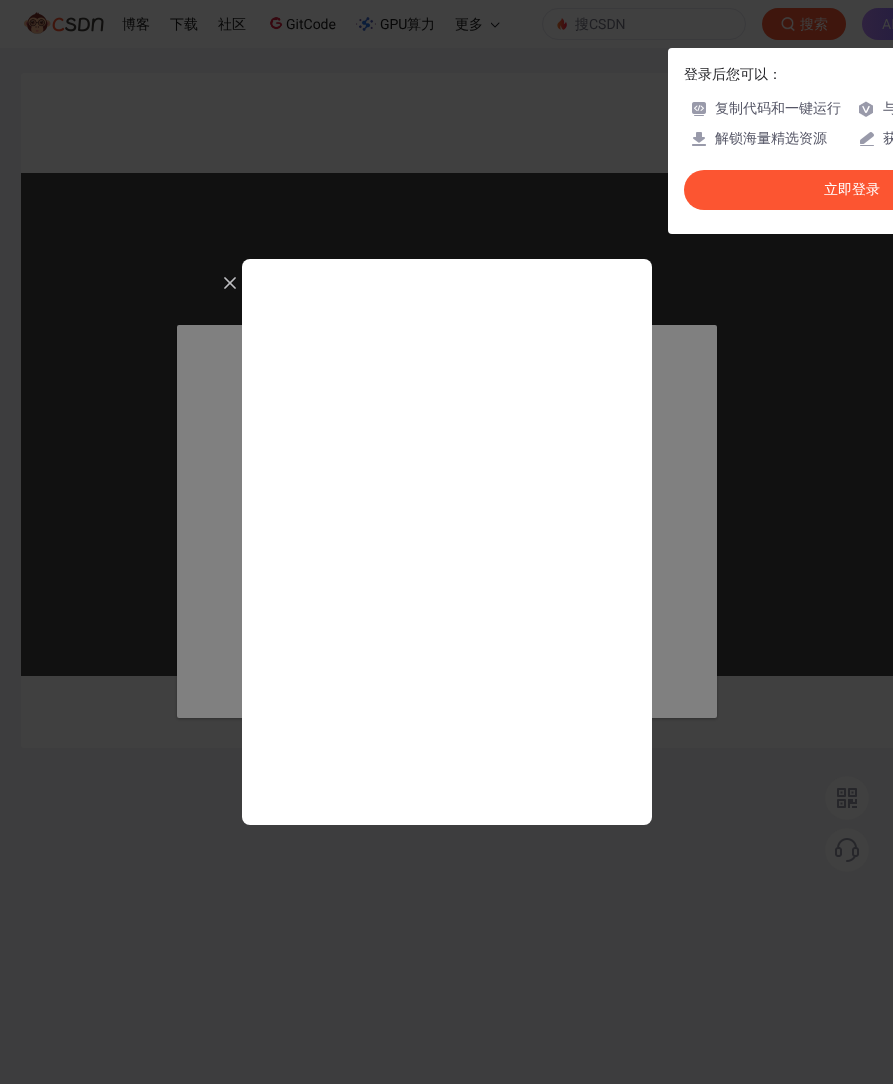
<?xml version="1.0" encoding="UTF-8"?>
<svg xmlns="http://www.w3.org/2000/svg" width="893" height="1084">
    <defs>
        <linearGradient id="g1" gradientUnits="userSpaceOnUse" x1="862" y1="24" x2="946" y2="24"><stop offset="0" stop-color="#2F223F"/><stop offset="1" stop-color="#191740"/></linearGradient>
        <filter id="blur1" x="-50%" y="-200%" width="200%" height="500%"><feGaussianBlur stdDeviation="1.5"/></filter>
    </defs>
    <rect width="100%" height="100%" fill="#3D3D3E"/>
    <rect x="0" y="0" width="893" height="48" fill="#404040"/>
    <image x="24" y="12" width="80" height="22" href="img_01.png"/>
    <text x="122" y="29" font-family="WenQuanYi Zen Hei" font-size="14" font-weight="500" fill="#070707">博客</text>
    <text x="170" y="29" font-family="WenQuanYi Zen Hei" font-size="14" font-weight="500" fill="#070707">下载</text>
    <text x="218" y="29" font-family="WenQuanYi Zen Hei" font-size="14" font-weight="500" fill="#070707">社区</text>
    <image x="270" y="17" width="13" height="13" href="img_02.png"/>
    <text x="286" y="29" font-family="Roboto" font-size="14" fill="#070707">GitCode</text>
    <image x="356" y="17" width="20" height="14" href="img_03.png"/>
    <text x="380" y="29" font-family="Roboto" font-size="14" fill="#070707">GPU</text>
    <text x="407" y="29" font-family="WenQuanYi Zen Hei" font-size="14" font-weight="500" fill="#070707">算力</text>
    <text x="455" y="29" font-family="WenQuanYi Zen Hei" font-size="14" font-weight="500" fill="#070707">更多</text>
    <image x="491" y="22" width="9" height="6" href="img_04.png"/>
    <rect x="542.5" y="8.5" width="203" height="31" rx="15.5" fill="none" stroke="#3A3A3C"/>
    <image x="557" y="18" width="10" height="12" href="img_05.png"/>
    <text x="575" y="29" font-family="WenQuanYi Zen Hei" font-size="14" font-weight="500" fill="#1E1E22">搜</text>
    <text x="589" y="29" font-family="Roboto" font-size="14" fill="#1E1E22">CSDN</text>
    <rect x="762" y="8" width="84" height="32" rx="16" fill="#3F160D"/>
    <image x="781" y="17" width="14" height="15" href="img_06.png"/>
    <text x="800" y="29" font-family="WenQuanYi Zen Hei" font-size="14" font-weight="500" fill="#404040">搜索</text>
    <rect x="862" y="8" width="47" height="32" rx="16" fill="url(#g1)"/>
    <text x="882" y="29" font-family="Roboto" font-size="14" fill="#404040">AI</text>
    <path d="M 23 73 H 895 V 173 H 21 V 75 C 21 74 22 73 23 73 Z" fill="#404040"/>
    <rect x="21" y="173" width="872" height="503" fill="#111111"/>
    <rect x="668" y="48" width="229" height="186" rx="4" fill="#FFFFFF"/>
    <text x="684" y="79" font-family="WenQuanYi Zen Hei" font-size="14" font-weight="500" fill="#1E1E22">登录后您可以：</text>
    <image x="692" y="102" width="14" height="14" href="img_07.png"/>
    <text x="715" y="113" font-family="WenQuanYi Zen Hei" font-size="14" font-weight="500" fill="#555666">复制代码和一键运行</text>
    <image x="859" y="101" width="14" height="16" href="img_08.png"/>
    <text x="883" y="113" font-family="WenQuanYi Zen Hei" font-size="14" font-weight="500" fill="#555666">与</text>
    <image x="692" y="132" width="14" height="14" href="img_09.png"/>
    <text x="715" y="143" font-family="WenQuanYi Zen Hei" font-size="14" font-weight="500" fill="#555666">解锁海量精选资源</text>
    <image x="860" y="132" width="14" height="14" href="img_10.png"/>
    <text x="883" y="143" font-family="WenQuanYi Zen Hei" font-size="14" font-weight="500" fill="#555666">获</text>
    <rect x="684" y="170" width="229" height="40" rx="20" fill="#FC5531"/>
    <text x="824" y="194" font-family="WenQuanYi Zen Hei" font-size="14" font-weight="500" fill="#FFFFFF">立即登录</text>
    <path d="M 21 676 H 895 V 748 H 23 C 22 748 21 747 21 746 Z" fill="#404040"/>
    <rect x="177" y="326" width="540" height="393" rx="2" fill="#000000" fill-opacity="0.3" filter="url(#blur1)"/>
    <rect x="177" y="325" width="540" height="393" rx="2" fill="#808080"/>
    <rect x="242" y="259" width="410" height="566" rx="8" fill="#FFFFFF"/>
    <image x="224" y="277" width="12" height="12" href="img_11.png"/>
    <circle cx="847" cy="798" r="22" fill="#404040"/>
    <image x="837" y="788" width="20" height="20" href="img_12.png"/>
    <circle cx="847" cy="850" r="22" fill="#404040"/>
    <image x="835" y="838" width="24" height="24" href="img_13.png"/>
</svg>
